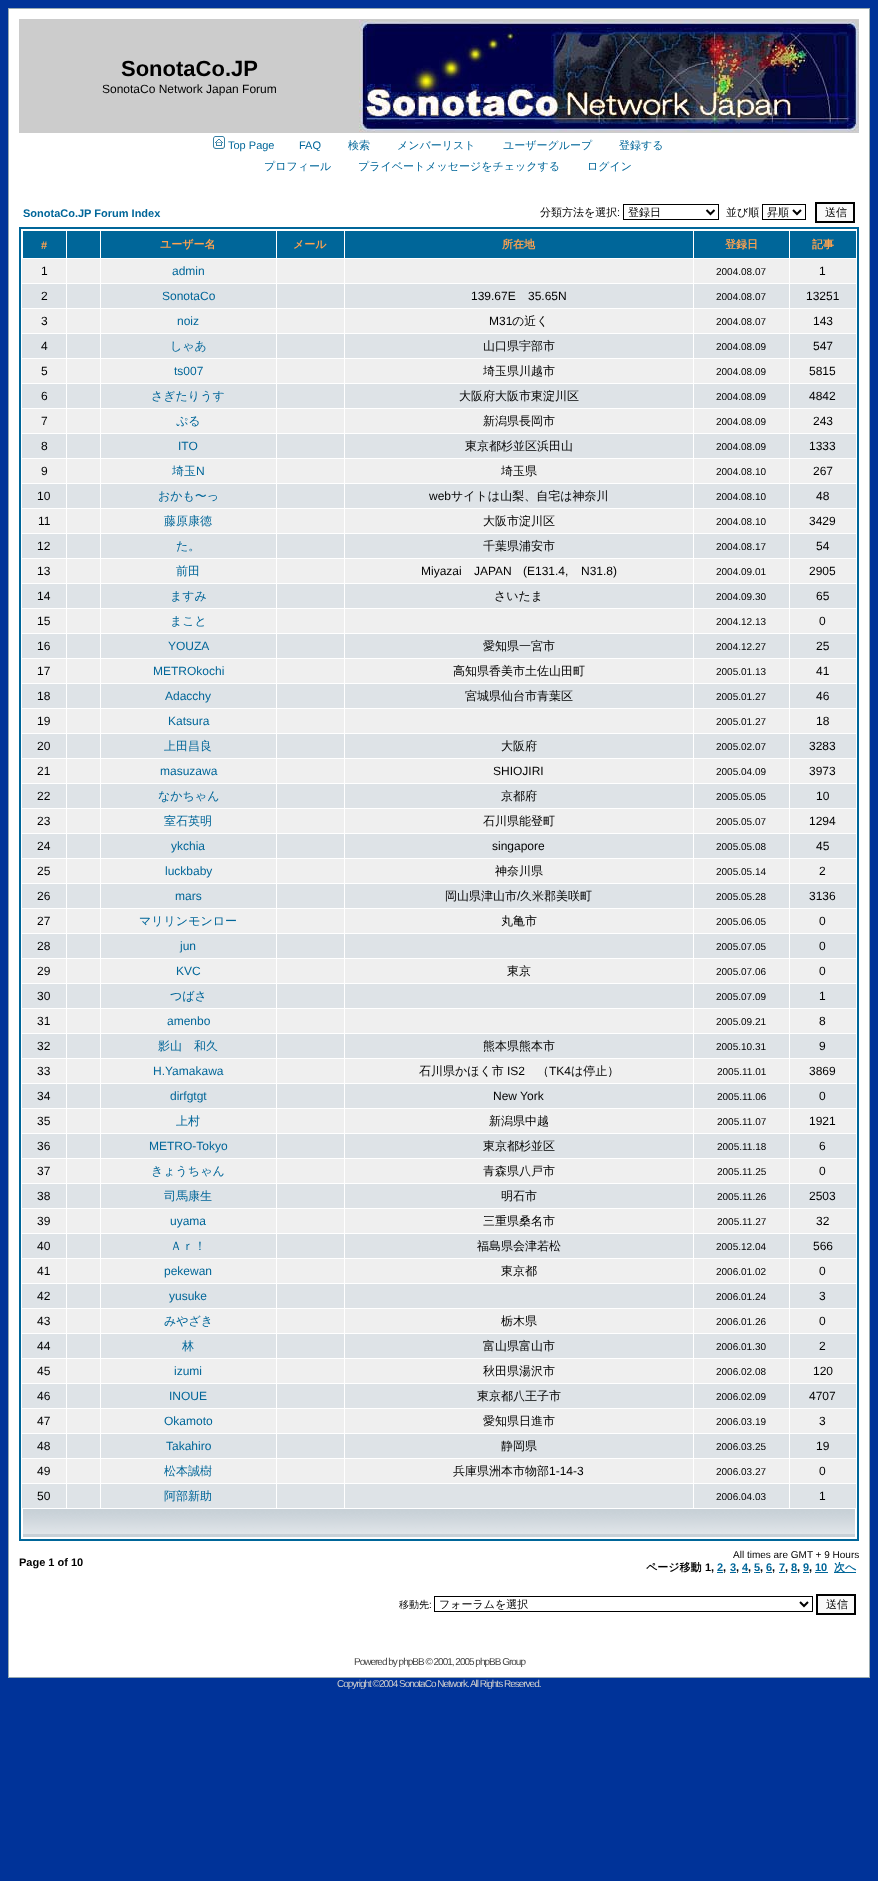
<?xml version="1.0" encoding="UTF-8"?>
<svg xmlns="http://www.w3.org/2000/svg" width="878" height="1881">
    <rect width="100%" height="100%" fill="#003399"/>
    <rect x="8.5" y="8.5" width="861" height="1669" fill="#FFFFFF" stroke="#98AAB1"/>
    <rect x="19" y="19" width="840" height="114" fill="#CCCCCC"/>
    <text x="121" y="76" font-family="Liberation Sans" font-size="22" font-weight="700" fill="#000000">SonotaCo.JP</text>
    <text x="102" y="93" font-family="Liberation Sans" font-size="12" fill="#000000">SonotaCo Network Japan Forum</text>
    <image x="359" y="20" width="500" height="112" href="img_01.png"/>
    <image x="213" y="136" width="12" height="13" href="img_02.png"/>
    <text x="228" y="149" font-family="Liberation Sans" font-size="11" fill="#006699">Top Page</text>
    <text x="299" y="149" font-family="Liberation Sans" font-size="11" fill="#006699">FAQ</text>
    <text x="348" y="149" font-family="WenQuanYi Zen Hei" font-size="11" font-weight="500" fill="#006699">検索</text>
    <text x="397" y="149" font-family="WenQuanYi Zen Hei" font-size="11" font-weight="500" fill="#006699">メンバーリスト</text>
    <text x="503" y="149" font-family="WenQuanYi Zen Hei" font-size="11" font-weight="500" fill="#006699">ユーザーグループ</text>
    <text x="619" y="149" font-family="WenQuanYi Zen Hei" font-size="11" font-weight="500" fill="#006699">登録する</text>
    <text x="264" y="170" font-family="WenQuanYi Zen Hei" font-size="11" font-weight="500" fill="#006699">プロフィール</text>
    <text x="358" y="170" font-family="WenQuanYi Zen Hei" font-size="11" font-weight="500" fill="#006699">プライベートメッセージをチェックする</text>
    <text x="587" y="170" font-family="WenQuanYi Zen Hei" font-size="11" font-weight="500" fill="#006699">ログイン</text>
    <text x="23" y="217" font-family="Liberation Sans" font-size="11" font-weight="700" fill="#006699">SonotaCo.JP Forum Index</text>
    <text x="540" y="216" font-family="WenQuanYi Zen Hei" font-size="11" font-weight="500" fill="#000000">分類方法を選択</text>
    <text x="617" y="216" font-family="Liberation Sans" font-size="11" fill="#000000">:</text>
    <rect x="623.5" y="204.5" width="95" height="15" fill="none" stroke="#000000"/>
    <path d="M 706.5 210 L 710.5 214 L 714.5 210" fill="none" stroke="#000000" stroke-width="2"/>
    <text x="628" y="216" font-family="WenQuanYi Zen Hei" font-size="11" font-weight="500" fill="#000000">登録日</text>
    <text x="726" y="216" font-family="WenQuanYi Zen Hei" font-size="11" font-weight="500" fill="#000000">並び順</text>
    <rect x="762.5" y="204.5" width="43" height="15" fill="none" stroke="#000000"/>
    <path d="M 793 210 L 797 214 L 801 210" fill="none" stroke="#000000" stroke-width="2"/>
    <text x="767" y="216" font-family="WenQuanYi Zen Hei" font-size="11" font-weight="500" fill="#000000">昇順</text>
    <rect x="816" y="203" width="38" height="19" fill="#FAFAFA" stroke="#000000" stroke-width="2"/>
    <text x="825" y="216" font-family="WenQuanYi Zen Hei" font-size="11" font-weight="500" fill="#000000">送信</text>
    <rect x="20" y="228" width="838" height="1312" fill="none" stroke="#006699" stroke-width="2"/>
    <rect x="23" y="231" width="43" height="27" fill="#006699"/>
    <text x="41" y="249" font-family="Liberation Sans" font-size="11" font-weight="700" fill="#FFA34F">#</text>
    <rect x="67" y="231" width="33" height="27" fill="#006699"/>
    <rect x="101" y="231" width="175" height="27" fill="#006699"/>
    <text x="160" y="248" font-family="WenQuanYi Zen Hei" font-size="11" font-weight="700" fill="#FFA34F">ユーザー名</text>
    <rect x="277" y="231" width="67" height="27" fill="#006699"/>
    <text x="293" y="248" font-family="WenQuanYi Zen Hei" font-size="11" font-weight="700" fill="#FFA34F">メール</text>
    <rect x="345" y="231" width="348" height="27" fill="#006699"/>
    <text x="502" y="248" font-family="WenQuanYi Zen Hei" font-size="11" font-weight="700" fill="#FFA34F">所在地</text>
    <rect x="694" y="231" width="95" height="27" fill="#006699"/>
    <text x="725" y="248" font-family="WenQuanYi Zen Hei" font-size="11" font-weight="700" fill="#FFA34F">登録日</text>
    <rect x="790" y="231" width="66" height="27" fill="#006699"/>
    <text x="812" y="248" font-family="WenQuanYi Zen Hei" font-size="11" font-weight="700" fill="#FFA34F">記事</text>
    <rect x="22" y="259" width="44" height="24" fill="#EFEFEF"/>
    <text x="41" y="275" font-family="Liberation Sans" font-size="12" fill="#000000">1</text>
    <rect x="67" y="259" width="33" height="24" fill="#EFEFEF"/>
    <rect x="101" y="259" width="175" height="24" fill="#EFEFEF"/>
    <text x="172" y="275" font-family="Liberation Sans" font-size="12" fill="#006699">admin</text>
    <rect x="277" y="259" width="67" height="24" fill="#EFEFEF"/>
    <rect x="345" y="259" width="348" height="24" fill="#EFEFEF"/>
    <rect x="694" y="259" width="95" height="24" fill="#EFEFEF"/>
    <text x="716" y="275" font-family="Liberation Sans" font-size="10" fill="#000000">2004.08.07</text>
    <rect x="790" y="259" width="66" height="24" fill="#EFEFEF"/>
    <text x="819" y="275" font-family="Liberation Sans" font-size="12" fill="#000000">1</text>
    <rect x="22" y="284" width="44" height="24" fill="#DEE3E7"/>
    <text x="41" y="300" font-family="Liberation Sans" font-size="12" fill="#000000">2</text>
    <rect x="67" y="284" width="33" height="24" fill="#DEE3E7"/>
    <rect x="101" y="284" width="175" height="24" fill="#DEE3E7"/>
    <text x="162" y="300" font-family="Liberation Sans" font-size="12" fill="#006699">SonotaCo</text>
    <rect x="277" y="284" width="67" height="24" fill="#DEE3E7"/>
    <rect x="345" y="284" width="348" height="24" fill="#DEE3E7"/>
    <text x="471" y="300" font-family="Liberation Sans" font-size="12" fill="#000000">139.67E</text>
    <text x="528" y="300" font-family="Liberation Sans" font-size="12" fill="#000000">35.65N</text>
    <rect x="694" y="284" width="95" height="24" fill="#DEE3E7"/>
    <text x="716" y="300" font-family="Liberation Sans" font-size="10" fill="#000000">2004.08.07</text>
    <rect x="790" y="284" width="66" height="24" fill="#DEE3E7"/>
    <text x="806" y="300" font-family="Liberation Sans" font-size="12" fill="#000000">13251</text>
    <rect x="22" y="309" width="44" height="24" fill="#EFEFEF"/>
    <text x="41" y="325" font-family="Liberation Sans" font-size="12" fill="#000000">3</text>
    <rect x="67" y="309" width="33" height="24" fill="#EFEFEF"/>
    <rect x="101" y="309" width="175" height="24" fill="#EFEFEF"/>
    <text x="177" y="325" font-family="Liberation Sans" font-size="12" fill="#006699">noiz</text>
    <rect x="277" y="309" width="67" height="24" fill="#EFEFEF"/>
    <rect x="345" y="309" width="348" height="24" fill="#EFEFEF"/>
    <text x="489" y="325" font-family="Liberation Sans" font-size="12" fill="#000000">M31</text>
    <text x="512" y="325" font-family="WenQuanYi Zen Hei" font-size="12" font-weight="500" fill="#000000">の近く</text>
    <rect x="694" y="309" width="95" height="24" fill="#EFEFEF"/>
    <text x="716" y="325" font-family="Liberation Sans" font-size="10" fill="#000000">2004.08.07</text>
    <rect x="790" y="309" width="66" height="24" fill="#EFEFEF"/>
    <text x="813" y="325" font-family="Liberation Sans" font-size="12" fill="#000000">143</text>
    <rect x="22" y="334" width="44" height="24" fill="#DEE3E7"/>
    <text x="41" y="350" font-family="Liberation Sans" font-size="12" fill="#000000">4</text>
    <rect x="67" y="334" width="33" height="24" fill="#DEE3E7"/>
    <rect x="101" y="334" width="175" height="24" fill="#DEE3E7"/>
    <text x="170" y="350" font-family="WenQuanYi Zen Hei" font-size="12" font-weight="500" fill="#006699">しゃあ</text>
    <rect x="277" y="334" width="67" height="24" fill="#DEE3E7"/>
    <rect x="345" y="334" width="348" height="24" fill="#DEE3E7"/>
    <text x="483" y="350" font-family="WenQuanYi Zen Hei" font-size="12" font-weight="500" fill="#000000">山口県宇部市</text>
    <rect x="694" y="334" width="95" height="24" fill="#DEE3E7"/>
    <text x="716" y="350" font-family="Liberation Sans" font-size="10" fill="#000000">2004.08.09</text>
    <rect x="790" y="334" width="66" height="24" fill="#DEE3E7"/>
    <text x="813" y="350" font-family="Liberation Sans" font-size="12" fill="#000000">547</text>
    <rect x="22" y="359" width="44" height="24" fill="#EFEFEF"/>
    <text x="41" y="375" font-family="Liberation Sans" font-size="12" fill="#000000">5</text>
    <rect x="67" y="359" width="33" height="24" fill="#EFEFEF"/>
    <rect x="101" y="359" width="175" height="24" fill="#EFEFEF"/>
    <text x="174" y="375" font-family="Liberation Sans" font-size="12" fill="#006699">ts007</text>
    <rect x="277" y="359" width="67" height="24" fill="#EFEFEF"/>
    <rect x="345" y="359" width="348" height="24" fill="#EFEFEF"/>
    <text x="483" y="375" font-family="WenQuanYi Zen Hei" font-size="12" font-weight="500" fill="#000000">埼玉県川越市</text>
    <rect x="694" y="359" width="95" height="24" fill="#EFEFEF"/>
    <text x="716" y="375" font-family="Liberation Sans" font-size="10" fill="#000000">2004.08.09</text>
    <rect x="790" y="359" width="66" height="24" fill="#EFEFEF"/>
    <text x="809" y="375" font-family="Liberation Sans" font-size="12" fill="#000000">5815</text>
    <rect x="22" y="384" width="44" height="24" fill="#DEE3E7"/>
    <text x="41" y="400" font-family="Liberation Sans" font-size="12" fill="#000000">6</text>
    <rect x="67" y="384" width="33" height="24" fill="#DEE3E7"/>
    <rect x="101" y="384" width="175" height="24" fill="#DEE3E7"/>
    <text x="151" y="400" font-family="WenQuanYi Zen Hei" font-size="12" font-weight="500" fill="#006699">さぎたりうす</text>
    <rect x="277" y="384" width="67" height="24" fill="#DEE3E7"/>
    <rect x="345" y="384" width="348" height="24" fill="#DEE3E7"/>
    <text x="459" y="400" font-family="WenQuanYi Zen Hei" font-size="12" font-weight="500" fill="#000000">大阪府大阪市東淀川区</text>
    <rect x="694" y="384" width="95" height="24" fill="#DEE3E7"/>
    <text x="716" y="400" font-family="Liberation Sans" font-size="10" fill="#000000">2004.08.09</text>
    <rect x="790" y="384" width="66" height="24" fill="#DEE3E7"/>
    <text x="809" y="400" font-family="Liberation Sans" font-size="12" fill="#000000">4842</text>
    <rect x="22" y="409" width="44" height="24" fill="#EFEFEF"/>
    <text x="41" y="425" font-family="Liberation Sans" font-size="12" fill="#000000">7</text>
    <rect x="67" y="409" width="33" height="24" fill="#EFEFEF"/>
    <rect x="101" y="409" width="175" height="24" fill="#EFEFEF"/>
    <text x="176" y="425" font-family="WenQuanYi Zen Hei" font-size="12" font-weight="500" fill="#006699">ぷる</text>
    <rect x="277" y="409" width="67" height="24" fill="#EFEFEF"/>
    <rect x="345" y="409" width="348" height="24" fill="#EFEFEF"/>
    <text x="483" y="425" font-family="WenQuanYi Zen Hei" font-size="12" font-weight="500" fill="#000000">新潟県長岡市</text>
    <rect x="694" y="409" width="95" height="24" fill="#EFEFEF"/>
    <text x="716" y="425" font-family="Liberation Sans" font-size="10" fill="#000000">2004.08.09</text>
    <rect x="790" y="409" width="66" height="24" fill="#EFEFEF"/>
    <text x="813" y="425" font-family="Liberation Sans" font-size="12" fill="#000000">243</text>
    <rect x="22" y="434" width="44" height="24" fill="#DEE3E7"/>
    <text x="41" y="450" font-family="Liberation Sans" font-size="12" fill="#000000">8</text>
    <rect x="67" y="434" width="33" height="24" fill="#DEE3E7"/>
    <rect x="101" y="434" width="175" height="24" fill="#DEE3E7"/>
    <text x="178" y="450" font-family="Liberation Sans" font-size="12" fill="#006699">ITO</text>
    <rect x="277" y="434" width="67" height="24" fill="#DEE3E7"/>
    <rect x="345" y="434" width="348" height="24" fill="#DEE3E7"/>
    <text x="465" y="450" font-family="WenQuanYi Zen Hei" font-size="12" font-weight="500" fill="#000000">東京都杉並区浜田山</text>
    <rect x="694" y="434" width="95" height="24" fill="#DEE3E7"/>
    <text x="716" y="450" font-family="Liberation Sans" font-size="10" fill="#000000">2004.08.09</text>
    <rect x="790" y="434" width="66" height="24" fill="#DEE3E7"/>
    <text x="809" y="450" font-family="Liberation Sans" font-size="12" fill="#000000">1333</text>
    <rect x="22" y="459" width="44" height="24" fill="#EFEFEF"/>
    <text x="41" y="475" font-family="Liberation Sans" font-size="12" fill="#000000">9</text>
    <rect x="67" y="459" width="33" height="24" fill="#EFEFEF"/>
    <rect x="101" y="459" width="175" height="24" fill="#EFEFEF"/>
    <text x="172" y="475" font-family="WenQuanYi Zen Hei" font-size="12" font-weight="500" fill="#006699">埼玉</text>
    <text x="196" y="475" font-family="Liberation Sans" font-size="12" fill="#006699">N</text>
    <rect x="277" y="459" width="67" height="24" fill="#EFEFEF"/>
    <rect x="345" y="459" width="348" height="24" fill="#EFEFEF"/>
    <text x="501" y="475" font-family="WenQuanYi Zen Hei" font-size="12" font-weight="500" fill="#000000">埼玉県</text>
    <rect x="694" y="459" width="95" height="24" fill="#EFEFEF"/>
    <text x="716" y="475" font-family="Liberation Sans" font-size="10" fill="#000000">2004.08.10</text>
    <rect x="790" y="459" width="66" height="24" fill="#EFEFEF"/>
    <text x="813" y="475" font-family="Liberation Sans" font-size="12" fill="#000000">267</text>
    <rect x="22" y="484" width="44" height="24" fill="#DEE3E7"/>
    <text x="37" y="500" font-family="Liberation Sans" font-size="12" fill="#000000">10</text>
    <rect x="67" y="484" width="33" height="24" fill="#DEE3E7"/>
    <rect x="101" y="484" width="175" height="24" fill="#DEE3E7"/>
    <text x="158" y="500" font-family="WenQuanYi Zen Hei" font-size="12" font-weight="500" fill="#006699">おかも〜っ</text>
    <rect x="277" y="484" width="67" height="24" fill="#DEE3E7"/>
    <rect x="345" y="484" width="348" height="24" fill="#DEE3E7"/>
    <text x="429" y="500" font-family="Liberation Sans" font-size="12" fill="#000000">web</text>
    <text x="451" y="500" font-family="WenQuanYi Zen Hei" font-size="12" font-weight="500" fill="#000000">サイトは山梨、自宅は神奈川</text>
    <rect x="694" y="484" width="95" height="24" fill="#DEE3E7"/>
    <text x="716" y="500" font-family="Liberation Sans" font-size="10" fill="#000000">2004.08.10</text>
    <rect x="790" y="484" width="66" height="24" fill="#DEE3E7"/>
    <text x="816" y="500" font-family="Liberation Sans" font-size="12" fill="#000000">48</text>
    <rect x="22" y="509" width="44" height="24" fill="#EFEFEF"/>
    <text x="38" y="525" font-family="Liberation Sans" font-size="12" fill="#000000">11</text>
    <rect x="67" y="509" width="33" height="24" fill="#EFEFEF"/>
    <rect x="101" y="509" width="175" height="24" fill="#EFEFEF"/>
    <text x="164" y="525" font-family="WenQuanYi Zen Hei" font-size="12" font-weight="500" fill="#006699">藤原康徳</text>
    <rect x="277" y="509" width="67" height="24" fill="#EFEFEF"/>
    <rect x="345" y="509" width="348" height="24" fill="#EFEFEF"/>
    <text x="483" y="525" font-family="WenQuanYi Zen Hei" font-size="12" font-weight="500" fill="#000000">大阪市淀川区</text>
    <rect x="694" y="509" width="95" height="24" fill="#EFEFEF"/>
    <text x="716" y="525" font-family="Liberation Sans" font-size="10" fill="#000000">2004.08.10</text>
    <rect x="790" y="509" width="66" height="24" fill="#EFEFEF"/>
    <text x="809" y="525" font-family="Liberation Sans" font-size="12" fill="#000000">3429</text>
    <rect x="22" y="534" width="44" height="24" fill="#DEE3E7"/>
    <text x="37" y="550" font-family="Liberation Sans" font-size="12" fill="#000000">12</text>
    <rect x="67" y="534" width="33" height="24" fill="#DEE3E7"/>
    <rect x="101" y="534" width="175" height="24" fill="#DEE3E7"/>
    <text x="176" y="550" font-family="WenQuanYi Zen Hei" font-size="12" font-weight="500" fill="#006699">た。</text>
    <rect x="277" y="534" width="67" height="24" fill="#DEE3E7"/>
    <rect x="345" y="534" width="348" height="24" fill="#DEE3E7"/>
    <text x="483" y="550" font-family="WenQuanYi Zen Hei" font-size="12" font-weight="500" fill="#000000">千葉県浦安市</text>
    <rect x="694" y="534" width="95" height="24" fill="#DEE3E7"/>
    <text x="716" y="550" font-family="Liberation Sans" font-size="10" fill="#000000">2004.08.17</text>
    <rect x="790" y="534" width="66" height="24" fill="#DEE3E7"/>
    <text x="816" y="550" font-family="Liberation Sans" font-size="12" fill="#000000">54</text>
    <rect x="22" y="559" width="44" height="24" fill="#EFEFEF"/>
    <text x="37" y="575" font-family="Liberation Sans" font-size="12" fill="#000000">13</text>
    <rect x="67" y="559" width="33" height="24" fill="#EFEFEF"/>
    <rect x="101" y="559" width="175" height="24" fill="#EFEFEF"/>
    <text x="176" y="575" font-family="WenQuanYi Zen Hei" font-size="12" font-weight="500" fill="#006699">前田</text>
    <rect x="277" y="559" width="67" height="24" fill="#EFEFEF"/>
    <rect x="345" y="559" width="348" height="24" fill="#EFEFEF"/>
    <text x="421" y="575" font-family="Liberation Sans" font-size="12" fill="#000000">Miyazai</text>
    <text x="474" y="575" font-family="Liberation Sans" font-size="12" fill="#000000">JAPAN</text>
    <text x="523" y="575" font-family="Liberation Sans" font-size="12" fill="#000000">(E131.4,</text>
    <text x="581" y="575" font-family="Liberation Sans" font-size="12" fill="#000000">N31.8)</text>
    <rect x="694" y="559" width="95" height="24" fill="#EFEFEF"/>
    <text x="716" y="575" font-family="Liberation Sans" font-size="10" fill="#000000">2004.09.01</text>
    <rect x="790" y="559" width="66" height="24" fill="#EFEFEF"/>
    <text x="809" y="575" font-family="Liberation Sans" font-size="12" fill="#000000">2905</text>
    <rect x="22" y="584" width="44" height="24" fill="#DEE3E7"/>
    <text x="37" y="600" font-family="Liberation Sans" font-size="12" fill="#000000">14</text>
    <rect x="67" y="584" width="33" height="24" fill="#DEE3E7"/>
    <rect x="101" y="584" width="175" height="24" fill="#DEE3E7"/>
    <text x="170" y="600" font-family="WenQuanYi Zen Hei" font-size="12" font-weight="500" fill="#006699">ますみ</text>
    <rect x="277" y="584" width="67" height="24" fill="#DEE3E7"/>
    <rect x="345" y="584" width="348" height="24" fill="#DEE3E7"/>
    <text x="494" y="600" font-family="WenQuanYi Zen Hei" font-size="12" font-weight="500" fill="#000000">さいたま</text>
    <rect x="694" y="584" width="95" height="24" fill="#DEE3E7"/>
    <text x="716" y="600" font-family="Liberation Sans" font-size="10" fill="#000000">2004.09.30</text>
    <rect x="790" y="584" width="66" height="24" fill="#DEE3E7"/>
    <text x="816" y="600" font-family="Liberation Sans" font-size="12" fill="#000000">65</text>
    <rect x="22" y="609" width="44" height="24" fill="#EFEFEF"/>
    <text x="37" y="625" font-family="Liberation Sans" font-size="12" fill="#000000">15</text>
    <rect x="67" y="609" width="33" height="24" fill="#EFEFEF"/>
    <rect x="101" y="609" width="175" height="24" fill="#EFEFEF"/>
    <text x="170" y="625" font-family="WenQuanYi Zen Hei" font-size="12" font-weight="500" fill="#006699">まこと</text>
    <rect x="277" y="609" width="67" height="24" fill="#EFEFEF"/>
    <rect x="345" y="609" width="348" height="24" fill="#EFEFEF"/>
    <rect x="694" y="609" width="95" height="24" fill="#EFEFEF"/>
    <text x="716" y="625" font-family="Liberation Sans" font-size="10" fill="#000000">2004.12.13</text>
    <rect x="790" y="609" width="66" height="24" fill="#EFEFEF"/>
    <text x="819" y="625" font-family="Liberation Sans" font-size="12" fill="#000000">0</text>
    <rect x="22" y="634" width="44" height="24" fill="#DEE3E7"/>
    <text x="37" y="650" font-family="Liberation Sans" font-size="12" fill="#000000">16</text>
    <rect x="67" y="634" width="33" height="24" fill="#DEE3E7"/>
    <rect x="101" y="634" width="175" height="24" fill="#DEE3E7"/>
    <text x="168" y="650" font-family="Liberation Sans" font-size="12" fill="#006699">YOUZA</text>
    <rect x="277" y="634" width="67" height="24" fill="#DEE3E7"/>
    <rect x="345" y="634" width="348" height="24" fill="#DEE3E7"/>
    <text x="483" y="650" font-family="WenQuanYi Zen Hei" font-size="12" font-weight="500" fill="#000000">愛知県一宮市</text>
    <rect x="694" y="634" width="95" height="24" fill="#DEE3E7"/>
    <text x="716" y="650" font-family="Liberation Sans" font-size="10" fill="#000000">2004.12.27</text>
    <rect x="790" y="634" width="66" height="24" fill="#DEE3E7"/>
    <text x="816" y="650" font-family="Liberation Sans" font-size="12" fill="#000000">25</text>
    <rect x="22" y="659" width="44" height="24" fill="#EFEFEF"/>
    <text x="37" y="675" font-family="Liberation Sans" font-size="12" fill="#000000">17</text>
    <rect x="67" y="659" width="33" height="24" fill="#EFEFEF"/>
    <rect x="101" y="659" width="175" height="24" fill="#EFEFEF"/>
    <text x="153" y="675" font-family="Liberation Sans" font-size="12" fill="#006699">METROkochi</text>
    <rect x="277" y="659" width="67" height="24" fill="#EFEFEF"/>
    <rect x="345" y="659" width="348" height="24" fill="#EFEFEF"/>
    <text x="453" y="675" font-family="WenQuanYi Zen Hei" font-size="12" font-weight="500" fill="#000000">高知県香美市土佐山田町</text>
    <rect x="694" y="659" width="95" height="24" fill="#EFEFEF"/>
    <text x="716" y="675" font-family="Liberation Sans" font-size="10" fill="#000000">2005.01.13</text>
    <rect x="790" y="659" width="66" height="24" fill="#EFEFEF"/>
    <text x="816" y="675" font-family="Liberation Sans" font-size="12" fill="#000000">41</text>
    <rect x="22" y="684" width="44" height="24" fill="#DEE3E7"/>
    <text x="37" y="700" font-family="Liberation Sans" font-size="12" fill="#000000">18</text>
    <rect x="67" y="684" width="33" height="24" fill="#DEE3E7"/>
    <rect x="101" y="684" width="175" height="24" fill="#DEE3E7"/>
    <text x="165" y="700" font-family="Liberation Sans" font-size="12" fill="#006699">Adacchy</text>
    <rect x="277" y="684" width="67" height="24" fill="#DEE3E7"/>
    <rect x="345" y="684" width="348" height="24" fill="#DEE3E7"/>
    <text x="465" y="700" font-family="WenQuanYi Zen Hei" font-size="12" font-weight="500" fill="#000000">宮城県仙台市青葉区</text>
    <rect x="694" y="684" width="95" height="24" fill="#DEE3E7"/>
    <text x="716" y="700" font-family="Liberation Sans" font-size="10" fill="#000000">2005.01.27</text>
    <rect x="790" y="684" width="66" height="24" fill="#DEE3E7"/>
    <text x="816" y="700" font-family="Liberation Sans" font-size="12" fill="#000000">46</text>
    <rect x="22" y="709" width="44" height="24" fill="#EFEFEF"/>
    <text x="37" y="725" font-family="Liberation Sans" font-size="12" fill="#000000">19</text>
    <rect x="67" y="709" width="33" height="24" fill="#EFEFEF"/>
    <rect x="101" y="709" width="175" height="24" fill="#EFEFEF"/>
    <text x="168" y="725" font-family="Liberation Sans" font-size="12" fill="#006699">Katsura</text>
    <rect x="277" y="709" width="67" height="24" fill="#EFEFEF"/>
    <rect x="345" y="709" width="348" height="24" fill="#EFEFEF"/>
    <rect x="694" y="709" width="95" height="24" fill="#EFEFEF"/>
    <text x="716" y="725" font-family="Liberation Sans" font-size="10" fill="#000000">2005.01.27</text>
    <rect x="790" y="709" width="66" height="24" fill="#EFEFEF"/>
    <text x="816" y="725" font-family="Liberation Sans" font-size="12" fill="#000000">18</text>
    <rect x="22" y="734" width="44" height="24" fill="#DEE3E7"/>
    <text x="37" y="750" font-family="Liberation Sans" font-size="12" fill="#000000">20</text>
    <rect x="67" y="734" width="33" height="24" fill="#DEE3E7"/>
    <rect x="101" y="734" width="175" height="24" fill="#DEE3E7"/>
    <text x="164" y="750" font-family="WenQuanYi Zen Hei" font-size="12" font-weight="500" fill="#006699">上田昌良</text>
    <rect x="277" y="734" width="67" height="24" fill="#DEE3E7"/>
    <rect x="345" y="734" width="348" height="24" fill="#DEE3E7"/>
    <text x="501" y="750" font-family="WenQuanYi Zen Hei" font-size="12" font-weight="500" fill="#000000">大阪府</text>
    <rect x="694" y="734" width="95" height="24" fill="#DEE3E7"/>
    <text x="716" y="750" font-family="Liberation Sans" font-size="10" fill="#000000">2005.02.07</text>
    <rect x="790" y="734" width="66" height="24" fill="#DEE3E7"/>
    <text x="809" y="750" font-family="Liberation Sans" font-size="12" fill="#000000">3283</text>
    <rect x="22" y="759" width="44" height="24" fill="#EFEFEF"/>
    <text x="37" y="775" font-family="Liberation Sans" font-size="12" fill="#000000">21</text>
    <rect x="67" y="759" width="33" height="24" fill="#EFEFEF"/>
    <rect x="101" y="759" width="175" height="24" fill="#EFEFEF"/>
    <text x="160" y="775" font-family="Liberation Sans" font-size="12" fill="#006699">masuzawa</text>
    <rect x="277" y="759" width="67" height="24" fill="#EFEFEF"/>
    <rect x="345" y="759" width="348" height="24" fill="#EFEFEF"/>
    <text x="493" y="775" font-family="Liberation Sans" font-size="12" fill="#000000">SHIOJIRI</text>
    <rect x="694" y="759" width="95" height="24" fill="#EFEFEF"/>
    <text x="716" y="775" font-family="Liberation Sans" font-size="10" fill="#000000">2005.04.09</text>
    <rect x="790" y="759" width="66" height="24" fill="#EFEFEF"/>
    <text x="809" y="775" font-family="Liberation Sans" font-size="12" fill="#000000">3973</text>
    <rect x="22" y="784" width="44" height="24" fill="#DEE3E7"/>
    <text x="37" y="800" font-family="Liberation Sans" font-size="12" fill="#000000">22</text>
    <rect x="67" y="784" width="33" height="24" fill="#DEE3E7"/>
    <rect x="101" y="784" width="175" height="24" fill="#DEE3E7"/>
    <text x="158" y="800" font-family="WenQuanYi Zen Hei" font-size="12" font-weight="500" fill="#006699">なかちゃん</text>
    <rect x="277" y="784" width="67" height="24" fill="#DEE3E7"/>
    <rect x="345" y="784" width="348" height="24" fill="#DEE3E7"/>
    <text x="501" y="800" font-family="WenQuanYi Zen Hei" font-size="12" font-weight="500" fill="#000000">京都府</text>
    <rect x="694" y="784" width="95" height="24" fill="#DEE3E7"/>
    <text x="716" y="800" font-family="Liberation Sans" font-size="10" fill="#000000">2005.05.05</text>
    <rect x="790" y="784" width="66" height="24" fill="#DEE3E7"/>
    <text x="816" y="800" font-family="Liberation Sans" font-size="12" fill="#000000">10</text>
    <rect x="22" y="809" width="44" height="24" fill="#EFEFEF"/>
    <text x="37" y="825" font-family="Liberation Sans" font-size="12" fill="#000000">23</text>
    <rect x="67" y="809" width="33" height="24" fill="#EFEFEF"/>
    <rect x="101" y="809" width="175" height="24" fill="#EFEFEF"/>
    <text x="164" y="825" font-family="WenQuanYi Zen Hei" font-size="12" font-weight="500" fill="#006699">室石英明</text>
    <rect x="277" y="809" width="67" height="24" fill="#EFEFEF"/>
    <rect x="345" y="809" width="348" height="24" fill="#EFEFEF"/>
    <text x="483" y="825" font-family="WenQuanYi Zen Hei" font-size="12" font-weight="500" fill="#000000">石川県能登町</text>
    <rect x="694" y="809" width="95" height="24" fill="#EFEFEF"/>
    <text x="716" y="825" font-family="Liberation Sans" font-size="10" fill="#000000">2005.05.07</text>
    <rect x="790" y="809" width="66" height="24" fill="#EFEFEF"/>
    <text x="809" y="825" font-family="Liberation Sans" font-size="12" fill="#000000">1294</text>
    <rect x="22" y="834" width="44" height="24" fill="#DEE3E7"/>
    <text x="37" y="850" font-family="Liberation Sans" font-size="12" fill="#000000">24</text>
    <rect x="67" y="834" width="33" height="24" fill="#DEE3E7"/>
    <rect x="101" y="834" width="175" height="24" fill="#DEE3E7"/>
    <text x="171" y="850" font-family="Liberation Sans" font-size="12" fill="#006699">ykchia</text>
    <rect x="277" y="834" width="67" height="24" fill="#DEE3E7"/>
    <rect x="345" y="834" width="348" height="24" fill="#DEE3E7"/>
    <text x="492" y="850" font-family="Liberation Sans" font-size="12" fill="#000000">singapore</text>
    <rect x="694" y="834" width="95" height="24" fill="#DEE3E7"/>
    <text x="716" y="850" font-family="Liberation Sans" font-size="10" fill="#000000">2005.05.08</text>
    <rect x="790" y="834" width="66" height="24" fill="#DEE3E7"/>
    <text x="816" y="850" font-family="Liberation Sans" font-size="12" fill="#000000">45</text>
    <rect x="22" y="859" width="44" height="24" fill="#EFEFEF"/>
    <text x="37" y="875" font-family="Liberation Sans" font-size="12" fill="#000000">25</text>
    <rect x="67" y="859" width="33" height="24" fill="#EFEFEF"/>
    <rect x="101" y="859" width="175" height="24" fill="#EFEFEF"/>
    <text x="165" y="875" font-family="Liberation Sans" font-size="12" fill="#006699">luckbaby</text>
    <rect x="277" y="859" width="67" height="24" fill="#EFEFEF"/>
    <rect x="345" y="859" width="348" height="24" fill="#EFEFEF"/>
    <text x="495" y="875" font-family="WenQuanYi Zen Hei" font-size="12" font-weight="500" fill="#000000">神奈川県</text>
    <rect x="694" y="859" width="95" height="24" fill="#EFEFEF"/>
    <text x="716" y="875" font-family="Liberation Sans" font-size="10" fill="#000000">2005.05.14</text>
    <rect x="790" y="859" width="66" height="24" fill="#EFEFEF"/>
    <text x="819" y="875" font-family="Liberation Sans" font-size="12" fill="#000000">2</text>
    <rect x="22" y="884" width="44" height="24" fill="#DEE3E7"/>
    <text x="37" y="900" font-family="Liberation Sans" font-size="12" fill="#000000">26</text>
    <rect x="67" y="884" width="33" height="24" fill="#DEE3E7"/>
    <rect x="101" y="884" width="175" height="24" fill="#DEE3E7"/>
    <text x="175" y="900" font-family="Liberation Sans" font-size="12" fill="#006699">mars</text>
    <rect x="277" y="884" width="67" height="24" fill="#DEE3E7"/>
    <rect x="345" y="884" width="348" height="24" fill="#DEE3E7"/>
    <text x="445" y="900" font-family="WenQuanYi Zen Hei" font-size="12" font-weight="500" fill="#000000">岡山県津山市</text>
    <text x="517" y="900" font-family="Liberation Sans" font-size="12" fill="#000000">/</text>
    <text x="520" y="900" font-family="WenQuanYi Zen Hei" font-size="12" font-weight="500" fill="#000000">久米郡美咲町</text>
    <rect x="694" y="884" width="95" height="24" fill="#DEE3E7"/>
    <text x="716" y="900" font-family="Liberation Sans" font-size="10" fill="#000000">2005.05.28</text>
    <rect x="790" y="884" width="66" height="24" fill="#DEE3E7"/>
    <text x="809" y="900" font-family="Liberation Sans" font-size="12" fill="#000000">3136</text>
    <rect x="22" y="909" width="44" height="24" fill="#EFEFEF"/>
    <text x="37" y="925" font-family="Liberation Sans" font-size="12" fill="#000000">27</text>
    <rect x="67" y="909" width="33" height="24" fill="#EFEFEF"/>
    <rect x="101" y="909" width="175" height="24" fill="#EFEFEF"/>
    <text x="139" y="925" font-family="WenQuanYi Zen Hei" font-size="12" font-weight="500" fill="#006699">マリリンモンロー</text>
    <rect x="277" y="909" width="67" height="24" fill="#EFEFEF"/>
    <rect x="345" y="909" width="348" height="24" fill="#EFEFEF"/>
    <text x="501" y="925" font-family="WenQuanYi Zen Hei" font-size="12" font-weight="500" fill="#000000">丸亀市</text>
    <rect x="694" y="909" width="95" height="24" fill="#EFEFEF"/>
    <text x="716" y="925" font-family="Liberation Sans" font-size="10" fill="#000000">2005.06.05</text>
    <rect x="790" y="909" width="66" height="24" fill="#EFEFEF"/>
    <text x="819" y="925" font-family="Liberation Sans" font-size="12" fill="#000000">0</text>
    <rect x="22" y="934" width="44" height="24" fill="#DEE3E7"/>
    <text x="37" y="950" font-family="Liberation Sans" font-size="12" fill="#000000">28</text>
    <rect x="67" y="934" width="33" height="24" fill="#DEE3E7"/>
    <rect x="101" y="934" width="175" height="24" fill="#DEE3E7"/>
    <text x="180" y="950" font-family="Liberation Sans" font-size="12" fill="#006699">jun</text>
    <rect x="277" y="934" width="67" height="24" fill="#DEE3E7"/>
    <rect x="345" y="934" width="348" height="24" fill="#DEE3E7"/>
    <rect x="694" y="934" width="95" height="24" fill="#DEE3E7"/>
    <text x="716" y="950" font-family="Liberation Sans" font-size="10" fill="#000000">2005.07.05</text>
    <rect x="790" y="934" width="66" height="24" fill="#DEE3E7"/>
    <text x="819" y="950" font-family="Liberation Sans" font-size="12" fill="#000000">0</text>
    <rect x="22" y="959" width="44" height="24" fill="#EFEFEF"/>
    <text x="37" y="975" font-family="Liberation Sans" font-size="12" fill="#000000">29</text>
    <rect x="67" y="959" width="33" height="24" fill="#EFEFEF"/>
    <rect x="101" y="959" width="175" height="24" fill="#EFEFEF"/>
    <text x="176" y="975" font-family="Liberation Sans" font-size="12" fill="#006699">KVC</text>
    <rect x="277" y="959" width="67" height="24" fill="#EFEFEF"/>
    <rect x="345" y="959" width="348" height="24" fill="#EFEFEF"/>
    <text x="507" y="975" font-family="WenQuanYi Zen Hei" font-size="12" font-weight="500" fill="#000000">東京</text>
    <rect x="694" y="959" width="95" height="24" fill="#EFEFEF"/>
    <text x="716" y="975" font-family="Liberation Sans" font-size="10" fill="#000000">2005.07.06</text>
    <rect x="790" y="959" width="66" height="24" fill="#EFEFEF"/>
    <text x="819" y="975" font-family="Liberation Sans" font-size="12" fill="#000000">0</text>
    <rect x="22" y="984" width="44" height="24" fill="#DEE3E7"/>
    <text x="37" y="1000" font-family="Liberation Sans" font-size="12" fill="#000000">30</text>
    <rect x="67" y="984" width="33" height="24" fill="#DEE3E7"/>
    <rect x="101" y="984" width="175" height="24" fill="#DEE3E7"/>
    <text x="170" y="1000" font-family="WenQuanYi Zen Hei" font-size="12" font-weight="500" fill="#006699">つばさ</text>
    <rect x="277" y="984" width="67" height="24" fill="#DEE3E7"/>
    <rect x="345" y="984" width="348" height="24" fill="#DEE3E7"/>
    <rect x="694" y="984" width="95" height="24" fill="#DEE3E7"/>
    <text x="716" y="1000" font-family="Liberation Sans" font-size="10" fill="#000000">2005.07.09</text>
    <rect x="790" y="984" width="66" height="24" fill="#DEE3E7"/>
    <text x="819" y="1000" font-family="Liberation Sans" font-size="12" fill="#000000">1</text>
    <rect x="22" y="1009" width="44" height="24" fill="#EFEFEF"/>
    <text x="37" y="1025" font-family="Liberation Sans" font-size="12" fill="#000000">31</text>
    <rect x="67" y="1009" width="33" height="24" fill="#EFEFEF"/>
    <rect x="101" y="1009" width="175" height="24" fill="#EFEFEF"/>
    <text x="167" y="1025" font-family="Liberation Sans" font-size="12" fill="#006699">amenbo</text>
    <rect x="277" y="1009" width="67" height="24" fill="#EFEFEF"/>
    <rect x="345" y="1009" width="348" height="24" fill="#EFEFEF"/>
    <rect x="694" y="1009" width="95" height="24" fill="#EFEFEF"/>
    <text x="716" y="1025" font-family="Liberation Sans" font-size="10" fill="#000000">2005.09.21</text>
    <rect x="790" y="1009" width="66" height="24" fill="#EFEFEF"/>
    <text x="819" y="1025" font-family="Liberation Sans" font-size="12" fill="#000000">8</text>
    <rect x="22" y="1034" width="44" height="24" fill="#DEE3E7"/>
    <text x="37" y="1050" font-family="Liberation Sans" font-size="12" fill="#000000">32</text>
    <rect x="67" y="1034" width="33" height="24" fill="#DEE3E7"/>
    <rect x="101" y="1034" width="175" height="24" fill="#DEE3E7"/>
    <text x="158" y="1050" font-family="WenQuanYi Zen Hei" font-size="12" font-weight="500" fill="#006699">影山　和久</text>
    <rect x="277" y="1034" width="67" height="24" fill="#DEE3E7"/>
    <rect x="345" y="1034" width="348" height="24" fill="#DEE3E7"/>
    <text x="483" y="1050" font-family="WenQuanYi Zen Hei" font-size="12" font-weight="500" fill="#000000">熊本県熊本市</text>
    <rect x="694" y="1034" width="95" height="24" fill="#DEE3E7"/>
    <text x="716" y="1050" font-family="Liberation Sans" font-size="10" fill="#000000">2005.10.31</text>
    <rect x="790" y="1034" width="66" height="24" fill="#DEE3E7"/>
    <text x="819" y="1050" font-family="Liberation Sans" font-size="12" fill="#000000">9</text>
    <rect x="22" y="1059" width="44" height="24" fill="#EFEFEF"/>
    <text x="37" y="1075" font-family="Liberation Sans" font-size="12" fill="#000000">33</text>
    <rect x="67" y="1059" width="33" height="24" fill="#EFEFEF"/>
    <rect x="101" y="1059" width="175" height="24" fill="#EFEFEF"/>
    <text x="153" y="1075" font-family="Liberation Sans" font-size="12" fill="#006699">H.Yamakawa</text>
    <rect x="277" y="1059" width="67" height="24" fill="#EFEFEF"/>
    <rect x="345" y="1059" width="348" height="24" fill="#EFEFEF"/>
    <text x="419" y="1075" font-family="WenQuanYi Zen Hei" font-size="12" font-weight="500" fill="#000000">石川県かほく市</text>
    <text x="507" y="1075" font-family="Liberation Sans" font-size="12" fill="#000000">IS2</text>
    <text x="537" y="1075" font-family="WenQuanYi Zen Hei" font-size="12" font-weight="500" fill="#000000">（</text>
    <text x="549" y="1075" font-family="Liberation Sans" font-size="12" fill="#000000">TK4</text>
    <text x="571" y="1075" font-family="WenQuanYi Zen Hei" font-size="12" font-weight="500" fill="#000000">は停止）</text>
    <rect x="694" y="1059" width="95" height="24" fill="#EFEFEF"/>
    <text x="717" y="1075" font-family="Liberation Sans" font-size="10" fill="#000000">2005.11.01</text>
    <rect x="790" y="1059" width="66" height="24" fill="#EFEFEF"/>
    <text x="809" y="1075" font-family="Liberation Sans" font-size="12" fill="#000000">3869</text>
    <rect x="22" y="1084" width="44" height="24" fill="#DEE3E7"/>
    <text x="37" y="1100" font-family="Liberation Sans" font-size="12" fill="#000000">34</text>
    <rect x="67" y="1084" width="33" height="24" fill="#DEE3E7"/>
    <rect x="101" y="1084" width="175" height="24" fill="#DEE3E7"/>
    <text x="170" y="1100" font-family="Liberation Sans" font-size="12" fill="#006699">dirfgtgt</text>
    <rect x="277" y="1084" width="67" height="24" fill="#DEE3E7"/>
    <rect x="345" y="1084" width="348" height="24" fill="#DEE3E7"/>
    <text x="493" y="1100" font-family="Liberation Sans" font-size="12" fill="#000000">New York</text>
    <rect x="694" y="1084" width="95" height="24" fill="#DEE3E7"/>
    <text x="717" y="1100" font-family="Liberation Sans" font-size="10" fill="#000000">2005.11.06</text>
    <rect x="790" y="1084" width="66" height="24" fill="#DEE3E7"/>
    <text x="819" y="1100" font-family="Liberation Sans" font-size="12" fill="#000000">0</text>
    <rect x="22" y="1109" width="44" height="24" fill="#EFEFEF"/>
    <text x="37" y="1125" font-family="Liberation Sans" font-size="12" fill="#000000">35</text>
    <rect x="67" y="1109" width="33" height="24" fill="#EFEFEF"/>
    <rect x="101" y="1109" width="175" height="24" fill="#EFEFEF"/>
    <text x="176" y="1125" font-family="WenQuanYi Zen Hei" font-size="12" font-weight="500" fill="#006699">上村</text>
    <rect x="277" y="1109" width="67" height="24" fill="#EFEFEF"/>
    <rect x="345" y="1109" width="348" height="24" fill="#EFEFEF"/>
    <text x="489" y="1125" font-family="WenQuanYi Zen Hei" font-size="12" font-weight="500" fill="#000000">新潟県中越</text>
    <rect x="694" y="1109" width="95" height="24" fill="#EFEFEF"/>
    <text x="717" y="1125" font-family="Liberation Sans" font-size="10" fill="#000000">2005.11.07</text>
    <rect x="790" y="1109" width="66" height="24" fill="#EFEFEF"/>
    <text x="809" y="1125" font-family="Liberation Sans" font-size="12" fill="#000000">1921</text>
    <rect x="22" y="1134" width="44" height="24" fill="#DEE3E7"/>
    <text x="37" y="1150" font-family="Liberation Sans" font-size="12" fill="#000000">36</text>
    <rect x="67" y="1134" width="33" height="24" fill="#DEE3E7"/>
    <rect x="101" y="1134" width="175" height="24" fill="#DEE3E7"/>
    <text x="149" y="1150" font-family="Liberation Sans" font-size="12" fill="#006699">METRO-Tokyo</text>
    <rect x="277" y="1134" width="67" height="24" fill="#DEE3E7"/>
    <rect x="345" y="1134" width="348" height="24" fill="#DEE3E7"/>
    <text x="483" y="1150" font-family="WenQuanYi Zen Hei" font-size="12" font-weight="500" fill="#000000">東京都杉並区</text>
    <rect x="694" y="1134" width="95" height="24" fill="#DEE3E7"/>
    <text x="717" y="1150" font-family="Liberation Sans" font-size="10" fill="#000000">2005.11.18</text>
    <rect x="790" y="1134" width="66" height="24" fill="#DEE3E7"/>
    <text x="819" y="1150" font-family="Liberation Sans" font-size="12" fill="#000000">6</text>
    <rect x="22" y="1159" width="44" height="24" fill="#EFEFEF"/>
    <text x="37" y="1175" font-family="Liberation Sans" font-size="12" fill="#000000">37</text>
    <rect x="67" y="1159" width="33" height="24" fill="#EFEFEF"/>
    <rect x="101" y="1159" width="175" height="24" fill="#EFEFEF"/>
    <text x="151" y="1175" font-family="WenQuanYi Zen Hei" font-size="12" font-weight="500" fill="#006699">きょうちゃん</text>
    <rect x="277" y="1159" width="67" height="24" fill="#EFEFEF"/>
    <rect x="345" y="1159" width="348" height="24" fill="#EFEFEF"/>
    <text x="483" y="1175" font-family="WenQuanYi Zen Hei" font-size="12" font-weight="500" fill="#000000">青森県八戸市</text>
    <rect x="694" y="1159" width="95" height="24" fill="#EFEFEF"/>
    <text x="717" y="1175" font-family="Liberation Sans" font-size="10" fill="#000000">2005.11.25</text>
    <rect x="790" y="1159" width="66" height="24" fill="#EFEFEF"/>
    <text x="819" y="1175" font-family="Liberation Sans" font-size="12" fill="#000000">0</text>
    <rect x="22" y="1184" width="44" height="24" fill="#DEE3E7"/>
    <text x="37" y="1200" font-family="Liberation Sans" font-size="12" fill="#000000">38</text>
    <rect x="67" y="1184" width="33" height="24" fill="#DEE3E7"/>
    <rect x="101" y="1184" width="175" height="24" fill="#DEE3E7"/>
    <text x="164" y="1200" font-family="WenQuanYi Zen Hei" font-size="12" font-weight="500" fill="#006699">司馬康生</text>
    <rect x="277" y="1184" width="67" height="24" fill="#DEE3E7"/>
    <rect x="345" y="1184" width="348" height="24" fill="#DEE3E7"/>
    <text x="501" y="1200" font-family="WenQuanYi Zen Hei" font-size="12" font-weight="500" fill="#000000">明石市</text>
    <rect x="694" y="1184" width="95" height="24" fill="#DEE3E7"/>
    <text x="717" y="1200" font-family="Liberation Sans" font-size="10" fill="#000000">2005.11.26</text>
    <rect x="790" y="1184" width="66" height="24" fill="#DEE3E7"/>
    <text x="809" y="1200" font-family="Liberation Sans" font-size="12" fill="#000000">2503</text>
    <rect x="22" y="1209" width="44" height="24" fill="#EFEFEF"/>
    <text x="37" y="1225" font-family="Liberation Sans" font-size="12" fill="#000000">39</text>
    <rect x="67" y="1209" width="33" height="24" fill="#EFEFEF"/>
    <rect x="101" y="1209" width="175" height="24" fill="#EFEFEF"/>
    <text x="170" y="1225" font-family="Liberation Sans" font-size="12" fill="#006699">uyama</text>
    <rect x="277" y="1209" width="67" height="24" fill="#EFEFEF"/>
    <rect x="345" y="1209" width="348" height="24" fill="#EFEFEF"/>
    <text x="483" y="1225" font-family="WenQuanYi Zen Hei" font-size="12" font-weight="500" fill="#000000">三重県桑名市</text>
    <rect x="694" y="1209" width="95" height="24" fill="#EFEFEF"/>
    <text x="717" y="1225" font-family="Liberation Sans" font-size="10" fill="#000000">2005.11.27</text>
    <rect x="790" y="1209" width="66" height="24" fill="#EFEFEF"/>
    <text x="816" y="1225" font-family="Liberation Sans" font-size="12" fill="#000000">32</text>
    <rect x="22" y="1234" width="44" height="24" fill="#DEE3E7"/>
    <text x="37" y="1250" font-family="Liberation Sans" font-size="12" fill="#000000">40</text>
    <rect x="67" y="1234" width="33" height="24" fill="#DEE3E7"/>
    <rect x="101" y="1234" width="175" height="24" fill="#DEE3E7"/>
    <text x="170" y="1250" font-family="WenQuanYi Zen Hei" font-size="12" font-weight="500" fill="#006699">Ａｒ！</text>
    <rect x="277" y="1234" width="67" height="24" fill="#DEE3E7"/>
    <rect x="345" y="1234" width="348" height="24" fill="#DEE3E7"/>
    <text x="477" y="1250" font-family="WenQuanYi Zen Hei" font-size="12" font-weight="500" fill="#000000">福島県会津若松</text>
    <rect x="694" y="1234" width="95" height="24" fill="#DEE3E7"/>
    <text x="716" y="1250" font-family="Liberation Sans" font-size="10" fill="#000000">2005.12.04</text>
    <rect x="790" y="1234" width="66" height="24" fill="#DEE3E7"/>
    <text x="813" y="1250" font-family="Liberation Sans" font-size="12" fill="#000000">566</text>
    <rect x="22" y="1259" width="44" height="24" fill="#EFEFEF"/>
    <text x="37" y="1275" font-family="Liberation Sans" font-size="12" fill="#000000">41</text>
    <rect x="67" y="1259" width="33" height="24" fill="#EFEFEF"/>
    <rect x="101" y="1259" width="175" height="24" fill="#EFEFEF"/>
    <text x="164" y="1275" font-family="Liberation Sans" font-size="12" fill="#006699">pekewan</text>
    <rect x="277" y="1259" width="67" height="24" fill="#EFEFEF"/>
    <rect x="345" y="1259" width="348" height="24" fill="#EFEFEF"/>
    <text x="501" y="1275" font-family="WenQuanYi Zen Hei" font-size="12" font-weight="500" fill="#000000">東京都</text>
    <rect x="694" y="1259" width="95" height="24" fill="#EFEFEF"/>
    <text x="716" y="1275" font-family="Liberation Sans" font-size="10" fill="#000000">2006.01.02</text>
    <rect x="790" y="1259" width="66" height="24" fill="#EFEFEF"/>
    <text x="819" y="1275" font-family="Liberation Sans" font-size="12" fill="#000000">0</text>
    <rect x="22" y="1284" width="44" height="24" fill="#DEE3E7"/>
    <text x="37" y="1300" font-family="Liberation Sans" font-size="12" fill="#000000">42</text>
    <rect x="67" y="1284" width="33" height="24" fill="#DEE3E7"/>
    <rect x="101" y="1284" width="175" height="24" fill="#DEE3E7"/>
    <text x="169" y="1300" font-family="Liberation Sans" font-size="12" fill="#006699">yusuke</text>
    <rect x="277" y="1284" width="67" height="24" fill="#DEE3E7"/>
    <rect x="345" y="1284" width="348" height="24" fill="#DEE3E7"/>
    <rect x="694" y="1284" width="95" height="24" fill="#DEE3E7"/>
    <text x="716" y="1300" font-family="Liberation Sans" font-size="10" fill="#000000">2006.01.24</text>
    <rect x="790" y="1284" width="66" height="24" fill="#DEE3E7"/>
    <text x="819" y="1300" font-family="Liberation Sans" font-size="12" fill="#000000">3</text>
    <rect x="22" y="1309" width="44" height="24" fill="#EFEFEF"/>
    <text x="37" y="1325" font-family="Liberation Sans" font-size="12" fill="#000000">43</text>
    <rect x="67" y="1309" width="33" height="24" fill="#EFEFEF"/>
    <rect x="101" y="1309" width="175" height="24" fill="#EFEFEF"/>
    <text x="164" y="1325" font-family="WenQuanYi Zen Hei" font-size="12" font-weight="500" fill="#006699">みやざき</text>
    <rect x="277" y="1309" width="67" height="24" fill="#EFEFEF"/>
    <rect x="345" y="1309" width="348" height="24" fill="#EFEFEF"/>
    <text x="501" y="1325" font-family="WenQuanYi Zen Hei" font-size="12" font-weight="500" fill="#000000">栃木県</text>
    <rect x="694" y="1309" width="95" height="24" fill="#EFEFEF"/>
    <text x="716" y="1325" font-family="Liberation Sans" font-size="10" fill="#000000">2006.01.26</text>
    <rect x="790" y="1309" width="66" height="24" fill="#EFEFEF"/>
    <text x="819" y="1325" font-family="Liberation Sans" font-size="12" fill="#000000">0</text>
    <rect x="22" y="1334" width="44" height="24" fill="#DEE3E7"/>
    <text x="37" y="1350" font-family="Liberation Sans" font-size="12" fill="#000000">44</text>
    <rect x="67" y="1334" width="33" height="24" fill="#DEE3E7"/>
    <rect x="101" y="1334" width="175" height="24" fill="#DEE3E7"/>
    <text x="182" y="1350" font-family="WenQuanYi Zen Hei" font-size="12" font-weight="500" fill="#006699">林</text>
    <rect x="277" y="1334" width="67" height="24" fill="#DEE3E7"/>
    <rect x="345" y="1334" width="348" height="24" fill="#DEE3E7"/>
    <text x="483" y="1350" font-family="WenQuanYi Zen Hei" font-size="12" font-weight="500" fill="#000000">富山県富山市</text>
    <rect x="694" y="1334" width="95" height="24" fill="#DEE3E7"/>
    <text x="716" y="1350" font-family="Liberation Sans" font-size="10" fill="#000000">2006.01.30</text>
    <rect x="790" y="1334" width="66" height="24" fill="#DEE3E7"/>
    <text x="819" y="1350" font-family="Liberation Sans" font-size="12" fill="#000000">2</text>
    <rect x="22" y="1359" width="44" height="24" fill="#EFEFEF"/>
    <text x="37" y="1375" font-family="Liberation Sans" font-size="12" fill="#000000">45</text>
    <rect x="67" y="1359" width="33" height="24" fill="#EFEFEF"/>
    <rect x="101" y="1359" width="175" height="24" fill="#EFEFEF"/>
    <text x="174" y="1375" font-family="Liberation Sans" font-size="12" fill="#006699">izumi</text>
    <rect x="277" y="1359" width="67" height="24" fill="#EFEFEF"/>
    <rect x="345" y="1359" width="348" height="24" fill="#EFEFEF"/>
    <text x="483" y="1375" font-family="WenQuanYi Zen Hei" font-size="12" font-weight="500" fill="#000000">秋田県湯沢市</text>
    <rect x="694" y="1359" width="95" height="24" fill="#EFEFEF"/>
    <text x="716" y="1375" font-family="Liberation Sans" font-size="10" fill="#000000">2006.02.08</text>
    <rect x="790" y="1359" width="66" height="24" fill="#EFEFEF"/>
    <text x="813" y="1375" font-family="Liberation Sans" font-size="12" fill="#000000">120</text>
    <rect x="22" y="1384" width="44" height="24" fill="#DEE3E7"/>
    <text x="37" y="1400" font-family="Liberation Sans" font-size="12" fill="#000000">46</text>
    <rect x="67" y="1384" width="33" height="24" fill="#DEE3E7"/>
    <rect x="101" y="1384" width="175" height="24" fill="#DEE3E7"/>
    <text x="169" y="1400" font-family="Liberation Sans" font-size="12" fill="#006699">INOUE</text>
    <rect x="277" y="1384" width="67" height="24" fill="#DEE3E7"/>
    <rect x="345" y="1384" width="348" height="24" fill="#DEE3E7"/>
    <text x="477" y="1400" font-family="WenQuanYi Zen Hei" font-size="12" font-weight="500" fill="#000000">東京都八王子市</text>
    <rect x="694" y="1384" width="95" height="24" fill="#DEE3E7"/>
    <text x="716" y="1400" font-family="Liberation Sans" font-size="10" fill="#000000">2006.02.09</text>
    <rect x="790" y="1384" width="66" height="24" fill="#DEE3E7"/>
    <text x="809" y="1400" font-family="Liberation Sans" font-size="12" fill="#000000">4707</text>
    <rect x="22" y="1409" width="44" height="24" fill="#EFEFEF"/>
    <text x="37" y="1425" font-family="Liberation Sans" font-size="12" fill="#000000">47</text>
    <rect x="67" y="1409" width="33" height="24" fill="#EFEFEF"/>
    <rect x="101" y="1409" width="175" height="24" fill="#EFEFEF"/>
    <text x="164" y="1425" font-family="Liberation Sans" font-size="12" fill="#006699">Okamoto</text>
    <rect x="277" y="1409" width="67" height="24" fill="#EFEFEF"/>
    <rect x="345" y="1409" width="348" height="24" fill="#EFEFEF"/>
    <text x="483" y="1425" font-family="WenQuanYi Zen Hei" font-size="12" font-weight="500" fill="#000000">愛知県日進市</text>
    <rect x="694" y="1409" width="95" height="24" fill="#EFEFEF"/>
    <text x="716" y="1425" font-family="Liberation Sans" font-size="10" fill="#000000">2006.03.19</text>
    <rect x="790" y="1409" width="66" height="24" fill="#EFEFEF"/>
    <text x="819" y="1425" font-family="Liberation Sans" font-size="12" fill="#000000">3</text>
    <rect x="22" y="1434" width="44" height="24" fill="#DEE3E7"/>
    <text x="37" y="1450" font-family="Liberation Sans" font-size="12" fill="#000000">48</text>
    <rect x="67" y="1434" width="33" height="24" fill="#DEE3E7"/>
    <rect x="101" y="1434" width="175" height="24" fill="#DEE3E7"/>
    <text x="166" y="1450" font-family="Liberation Sans" font-size="12" fill="#006699">Takahiro</text>
    <rect x="277" y="1434" width="67" height="24" fill="#DEE3E7"/>
    <rect x="345" y="1434" width="348" height="24" fill="#DEE3E7"/>
    <text x="501" y="1450" font-family="WenQuanYi Zen Hei" font-size="12" font-weight="500" fill="#000000">静岡県</text>
    <rect x="694" y="1434" width="95" height="24" fill="#DEE3E7"/>
    <text x="716" y="1450" font-family="Liberation Sans" font-size="10" fill="#000000">2006.03.25</text>
    <rect x="790" y="1434" width="66" height="24" fill="#DEE3E7"/>
    <text x="816" y="1450" font-family="Liberation Sans" font-size="12" fill="#000000">19</text>
    <rect x="22" y="1459" width="44" height="24" fill="#EFEFEF"/>
    <text x="37" y="1475" font-family="Liberation Sans" font-size="12" fill="#000000">49</text>
    <rect x="67" y="1459" width="33" height="24" fill="#EFEFEF"/>
    <rect x="101" y="1459" width="175" height="24" fill="#EFEFEF"/>
    <text x="164" y="1475" font-family="WenQuanYi Zen Hei" font-size="12" font-weight="500" fill="#006699">松本誠樹</text>
    <rect x="277" y="1459" width="67" height="24" fill="#EFEFEF"/>
    <rect x="345" y="1459" width="348" height="24" fill="#EFEFEF"/>
    <text x="453" y="1475" font-family="WenQuanYi Zen Hei" font-size="12" font-weight="500" fill="#000000">兵庫県洲本市物部</text>
    <text x="549" y="1475" font-family="Liberation Sans" font-size="12" fill="#000000">1-14-3</text>
    <rect x="694" y="1459" width="95" height="24" fill="#EFEFEF"/>
    <text x="716" y="1475" font-family="Liberation Sans" font-size="10" fill="#000000">2006.03.27</text>
    <rect x="790" y="1459" width="66" height="24" fill="#EFEFEF"/>
    <text x="819" y="1475" font-family="Liberation Sans" font-size="12" fill="#000000">0</text>
    <rect x="22" y="1484" width="44" height="24" fill="#DEE3E7"/>
    <text x="37" y="1500" font-family="Liberation Sans" font-size="12" fill="#000000">50</text>
    <rect x="67" y="1484" width="33" height="24" fill="#DEE3E7"/>
    <rect x="101" y="1484" width="175" height="24" fill="#DEE3E7"/>
    <text x="164" y="1500" font-family="WenQuanYi Zen Hei" font-size="12" font-weight="500" fill="#006699">阿部新助</text>
    <rect x="277" y="1484" width="67" height="24" fill="#DEE3E7"/>
    <rect x="345" y="1484" width="348" height="24" fill="#DEE3E7"/>
    <rect x="694" y="1484" width="95" height="24" fill="#DEE3E7"/>
    <text x="716" y="1500" font-family="Liberation Sans" font-size="10" fill="#000000">2006.04.03</text>
    <rect x="790" y="1484" width="66" height="24" fill="#DEE3E7"/>
    <text x="819" y="1500" font-family="Liberation Sans" font-size="12" fill="#000000">1</text>
    <image x="23" y="1509" width="832" height="28" href="img_03.png"/>
    <text x="19" y="1566" font-family="Liberation Sans" font-size="11" font-weight="700" fill="#000000">Page 1 of 10</text>
    <text x="733" y="1558" font-family="Liberation Sans" font-size="10" fill="#000000">All times are GMT + 9 Hours</text>
    <text x="646" y="1571" font-family="WenQuanYi Zen Hei" font-size="11" font-weight="700" fill="#000000">ページ移動</text>
    <text x="705" y="1571" font-family="Liberation Sans" font-size="11" font-weight="700" fill="#000000">1,</text>
    <text x="717" y="1571" font-family="Liberation Sans" font-size="11" font-weight="700" fill="#006699">2</text>
    <text x="723" y="1571" font-family="Liberation Sans" font-size="11" font-weight="700" fill="#000000">,</text>
    <rect x="717" y="1572" width="6" height="1" fill="#006699"/>
    <text x="730" y="1571" font-family="Liberation Sans" font-size="11" font-weight="700" fill="#006699">3</text>
    <text x="736" y="1571" font-family="Liberation Sans" font-size="11" font-weight="700" fill="#000000">,</text>
    <rect x="730" y="1572" width="6" height="1" fill="#006699"/>
    <text x="742" y="1571" font-family="Liberation Sans" font-size="11" font-weight="700" fill="#006699">4</text>
    <text x="748" y="1571" font-family="Liberation Sans" font-size="11" font-weight="700" fill="#000000">,</text>
    <rect x="742" y="1572" width="6" height="1" fill="#006699"/>
    <text x="754" y="1571" font-family="Liberation Sans" font-size="11" font-weight="700" fill="#006699">5</text>
    <text x="760" y="1571" font-family="Liberation Sans" font-size="11" font-weight="700" fill="#000000">,</text>
    <rect x="754" y="1572" width="6" height="1" fill="#006699"/>
    <text x="766" y="1571" font-family="Liberation Sans" font-size="11" font-weight="700" fill="#006699">6</text>
    <text x="772" y="1571" font-family="Liberation Sans" font-size="11" font-weight="700" fill="#000000">,</text>
    <rect x="766" y="1572" width="6" height="1" fill="#006699"/>
    <text x="779" y="1571" font-family="Liberation Sans" font-size="11" font-weight="700" fill="#006699">7</text>
    <text x="785" y="1571" font-family="Liberation Sans" font-size="11" font-weight="700" fill="#000000">,</text>
    <rect x="779" y="1572" width="6" height="1" fill="#006699"/>
    <text x="791" y="1571" font-family="Liberation Sans" font-size="11" font-weight="700" fill="#006699">8</text>
    <text x="797" y="1571" font-family="Liberation Sans" font-size="11" font-weight="700" fill="#000000">,</text>
    <rect x="791" y="1572" width="6" height="1" fill="#006699"/>
    <text x="803" y="1571" font-family="Liberation Sans" font-size="11" font-weight="700" fill="#006699">9</text>
    <text x="809" y="1571" font-family="Liberation Sans" font-size="11" font-weight="700" fill="#000000">,</text>
    <rect x="803" y="1572" width="6" height="1" fill="#006699"/>
    <rect x="815" y="1572" width="13" height="1" fill="#006699"/>
    <text x="815" y="1571" font-family="Liberation Sans" font-size="11" font-weight="700" fill="#006699">10</text>
    <rect x="834" y="1572" width="22" height="1" fill="#006699"/>
    <text x="834" y="1571" font-family="WenQuanYi Zen Hei" font-size="11" font-weight="700" fill="#006699">次へ</text>
    <text x="399" y="1608" font-family="WenQuanYi Zen Hei" font-size="10" font-weight="500" fill="#000000">移動先</text>
    <text x="429" y="1608" font-family="Liberation Sans" font-size="10" fill="#000000">:</text>
    <rect x="434.5" y="1596.5" width="378" height="15" fill="none" stroke="#000000"/>
    <path d="M 800 1602 L 804 1606 L 808 1602" fill="none" stroke="#000000" stroke-width="2"/>
    <text x="439" y="1608" font-family="WenQuanYi Zen Hei" font-size="11" font-weight="500" fill="#000000">フォーラムを選択</text>
    <rect x="817" y="1595" width="38" height="19" fill="#FAFAFA" stroke="#000000" stroke-width="2"/>
    <text x="826" y="1608" font-family="WenQuanYi Zen Hei" font-size="11" font-weight="500" fill="#000000">送信</text>
    <text x="354" y="1665" font-family="Liberation Sans" font-size="10" letter-spacing="-1" fill="#444444">Powered by phpBB © 2001, 2005 phpBB Group</text>
    <text x="337" y="1687" font-family="Liberation Sans" font-size="10" letter-spacing="-1" fill="#CCCCCC">Copyright ©2004 SonotaCo Network. All Rights Reserved.</text>
</svg>
